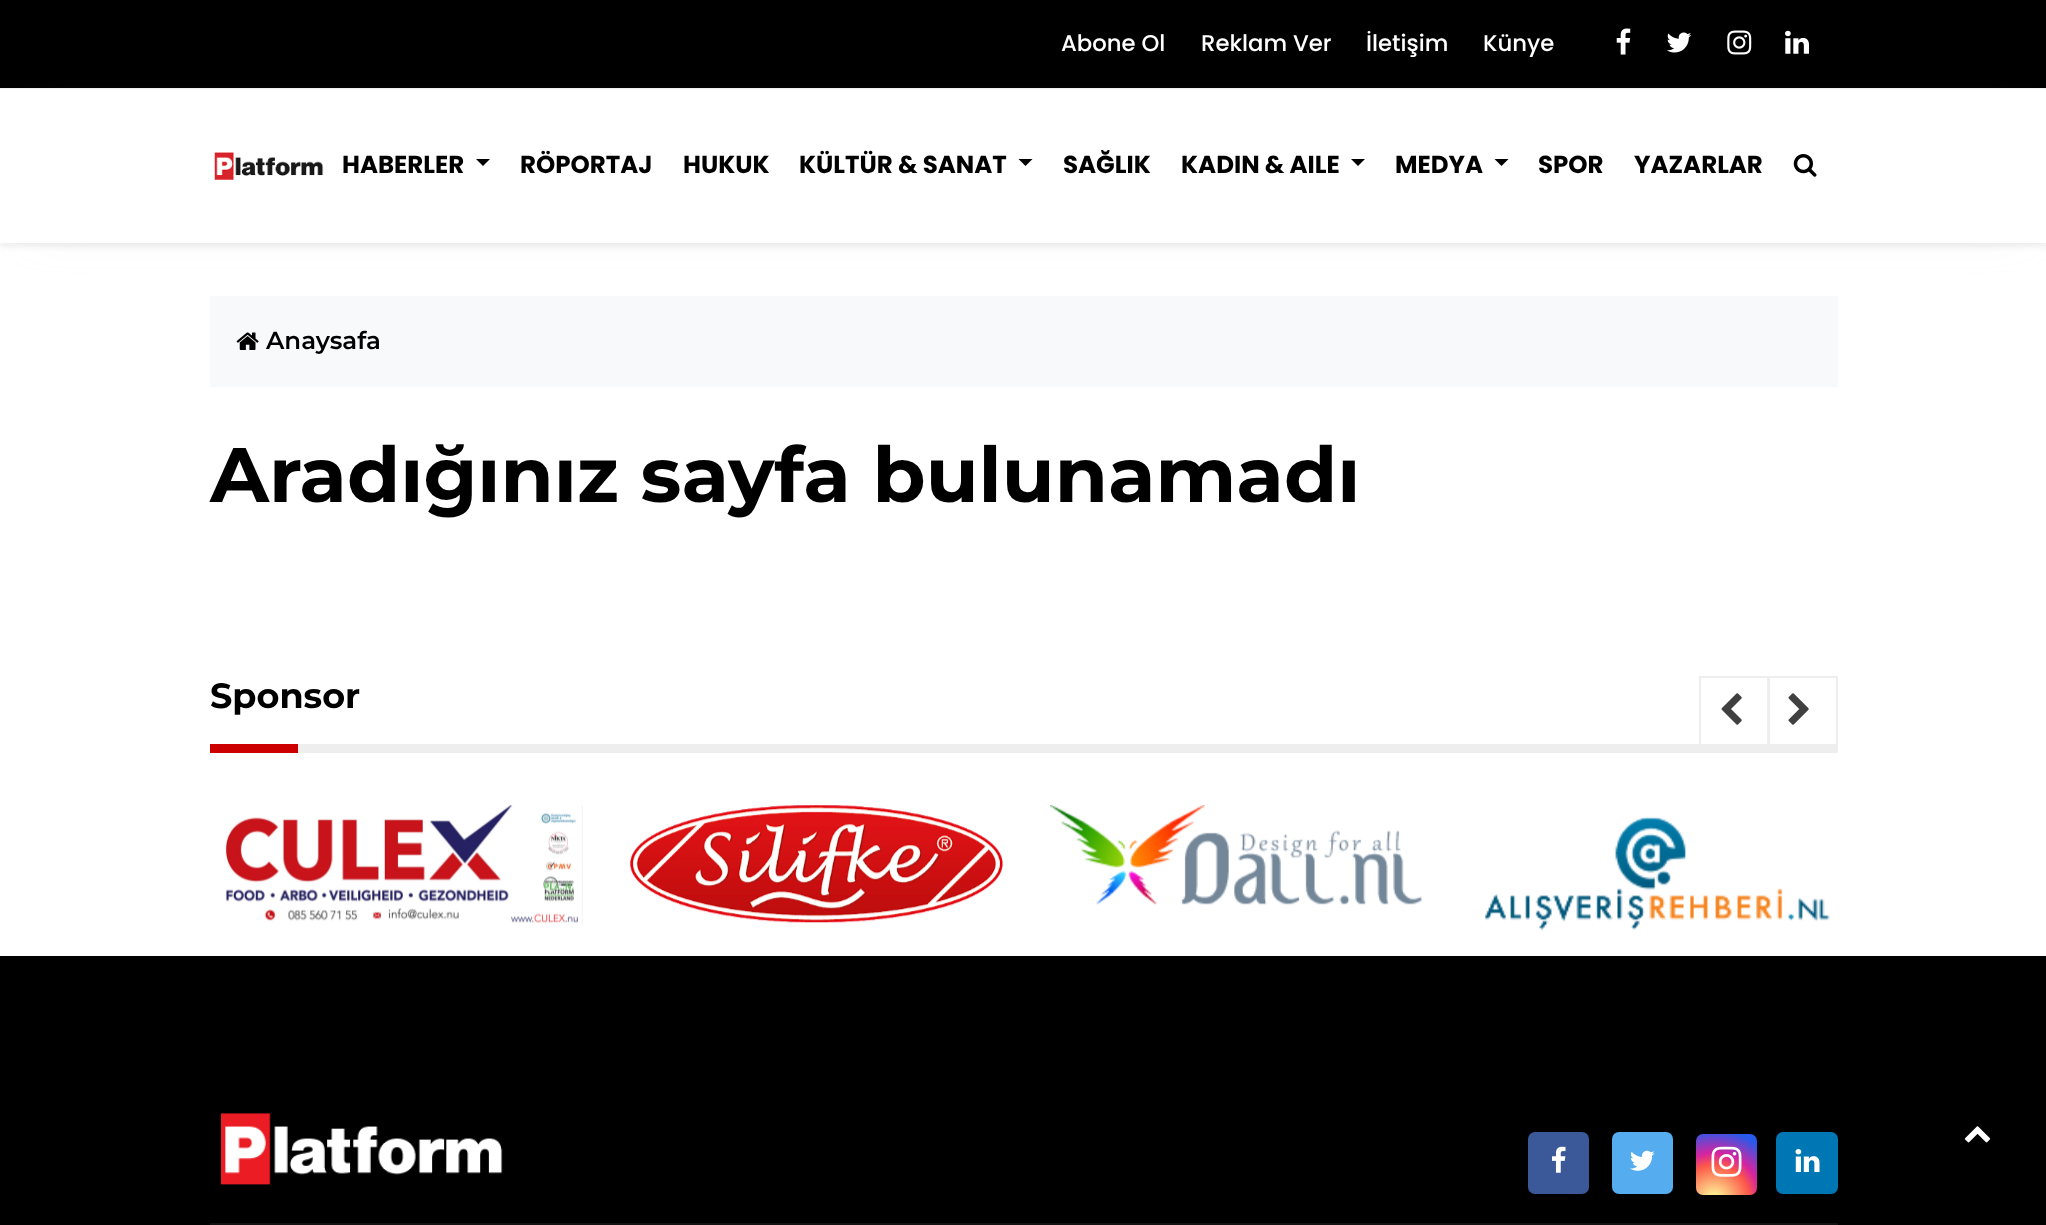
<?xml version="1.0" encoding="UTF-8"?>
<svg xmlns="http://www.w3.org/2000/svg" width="2046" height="1225">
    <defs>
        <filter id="blur1" x="-50%" y="-200%" width="200%" height="500%"><feGaussianBlur stdDeviation="24.5"/></filter>
        <filter id="blur2" x="-50%" y="-200%" width="200%" height="500%"><feGaussianBlur stdDeviation="2.5"/></filter>
        <radialGradient id="g1" gradientUnits="userSpaceOnUse" cx="1714" cy="1200" r="78"><stop offset="0" stop-color="#FDF497"/><stop offset="0.05" stop-color="#FDF497"/><stop offset="0.45" stop-color="#FD5949"/><stop offset="0.6" stop-color="#D6249F"/><stop offset="0.9" stop-color="#285AEB"/></radialGradient>
    </defs>
    <rect width="100%" height="100%" fill="#FFFFFF"/>
    <rect x="0" y="0" width="2046" height="88" fill="#000000"/>
    <text x="1061" y="51" font-family="Poppins" font-size="22.75" font-weight="500" fill="#FFFFFF">Abone Ol</text>
    <text x="1201" y="51" font-family="Poppins" font-size="22.75" font-weight="500" fill="#FFFFFF">Reklam Ver</text>
    <text x="1366" y="51" font-family="Poppins" font-size="22.75" font-weight="500" fill="#FFFFFF">İletişim</text>
    <text x="1483" y="51" font-family="Poppins" font-size="22.75" font-weight="500" fill="#FFFFFF">Künye</text>
    <image x="1616" y="28" width="15" height="27" href="img_01.png"/>
    <image x="1667" y="32" width="25" height="21" href="img_02.png"/>
    <image x="1727" y="30" width="25" height="25" href="img_03.png"/>
    <image x="1785" y="30" width="24" height="24" href="img_04.png"/>
    <rect x="42" y="137" width="1971" height="78" fill="#DADADA" filter="url(#blur1)"/>
    <rect x="0" y="88" width="2046" height="1" fill="#F1F1F1"/>
    <rect x="0" y="93" width="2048" height="154" fill="#646464" fill-opacity="0.1" filter="url(#blur2)"/>
    <rect x="0" y="90" width="2046" height="153" fill="#FFFFFF"/>
    <image x="214" y="152" width="110" height="28" href="img_05.png"/>
    <text x="342" y="173" font-family="Poppins" font-size="24.5" font-weight="700" fill="#000000">HABERLER</text>
    <path d="M 476 159 H 490 L 483 166 Z" fill="#000000"/>
    <text x="520" y="173" font-family="Poppins" font-size="24.5" font-weight="700" fill="#000000">RÖPORTAJ</text>
    <text x="683" y="173" font-family="Poppins" font-size="24.5" font-weight="700" fill="#000000">HUKUK</text>
    <text x="799" y="173" font-family="Poppins" font-size="24.5" font-weight="700" fill="#000000">KÜLTÜR &amp; SANAT</text>
    <path d="M 1018.5 159 H 1032.5 L 1025.5 166 Z" fill="#000000"/>
    <text x="1063" y="173" font-family="Poppins" font-size="24.5" font-weight="700" fill="#000000">SAĞLIK</text>
    <text x="1181" y="173" font-family="Poppins" font-size="24.5" font-weight="700" fill="#000000">KADIN &amp; AILE</text>
    <path d="M 1351 159 H 1365 L 1358 166 Z" fill="#000000"/>
    <text x="1395" y="173" font-family="Poppins" font-size="24.5" font-weight="700" fill="#000000">MEDYA</text>
    <path d="M 1494.5 159 H 1508.5 L 1501.5 166 Z" fill="#000000"/>
    <text x="1538" y="173" font-family="Poppins" font-size="24.5" font-weight="700" fill="#000000">SPOR</text>
    <text x="1634" y="173" font-family="Poppins" font-size="24.5" font-weight="700" fill="#000000">YAZARLAR</text>
    <image x="1793" y="154" width="24" height="23" href="img_06.png"/>
    <rect x="210" y="296" width="1628" height="91" fill="#F8F9FA"/>
    <image x="236" y="332" width="23" height="18" href="img_07.png"/>
    <text x="266" y="349" font-family="Montserrat" font-size="24.5" font-weight="600" fill="#000000">Anaysafa</text>
    <text x="210" y="502" font-family="Montserrat" font-size="77" font-weight="700" fill="#000000">Aradığınız sayfa bulunamadı</text>
    <rect x="298" y="744" width="1540" height="9" fill="#EEEEEE"/>
    <rect x="1700" y="677" width="68" height="68" fill="none" stroke="#EEEEEE" stroke-width="2"/>
    <image x="1721" y="693" width="21" height="32" href="img_08.png"/>
    <rect x="1769" y="677" width="68" height="68" fill="none" stroke="#EEEEEE" stroke-width="2"/>
    <image x="1788" y="693" width="21" height="32" href="img_09.png"/>
    <image x="225" y="805" width="358" height="121" href="img_10.png"/>
    <image x="630" y="805" width="373" height="118" href="img_11.png"/>
    <image x="1050" y="805" width="372" height="100" href="img_12.png"/>
    <image x="1485" y="816" width="345" height="115" href="img_13.png"/>
    <text x="210" y="708" font-family="Montserrat" font-size="35" font-weight="700" fill="#000000">Sponsor</text>
    <rect x="210" y="744" width="88" height="9" fill="#CC0000"/>
    <rect x="0" y="956" width="2046" height="269" fill="#000000"/>
    <rect x="210" y="1223" width="1628" height="2" fill="#121213"/>
    <image x="220" y="1113" width="283" height="72" href="img_14.png"/>
    <rect x="1528" y="1132" width="61" height="62" rx="7" fill="#3B5999"/>
    <image x="1552" y="1146" width="14" height="27" href="img_15.png"/>
    <rect x="1612" y="1132" width="61" height="62" rx="7" fill="#55ACEE"/>
    <image x="1630" y="1150" width="25" height="21" href="img_16.png"/>
    <rect x="1696" y="1134" width="61" height="61" rx="7" fill="url(#g1)"/>
    <image x="1711" y="1146" width="31" height="31" href="img_17.png"/>
    <rect x="1776" y="1132" width="62" height="62" rx="7" fill="#0077B5"/>
    <image x="1795" y="1149" width="25" height="23" href="img_18.png"/>
    <image x="1964" y="1126" width="27" height="17" href="img_19.png"/>
</svg>
